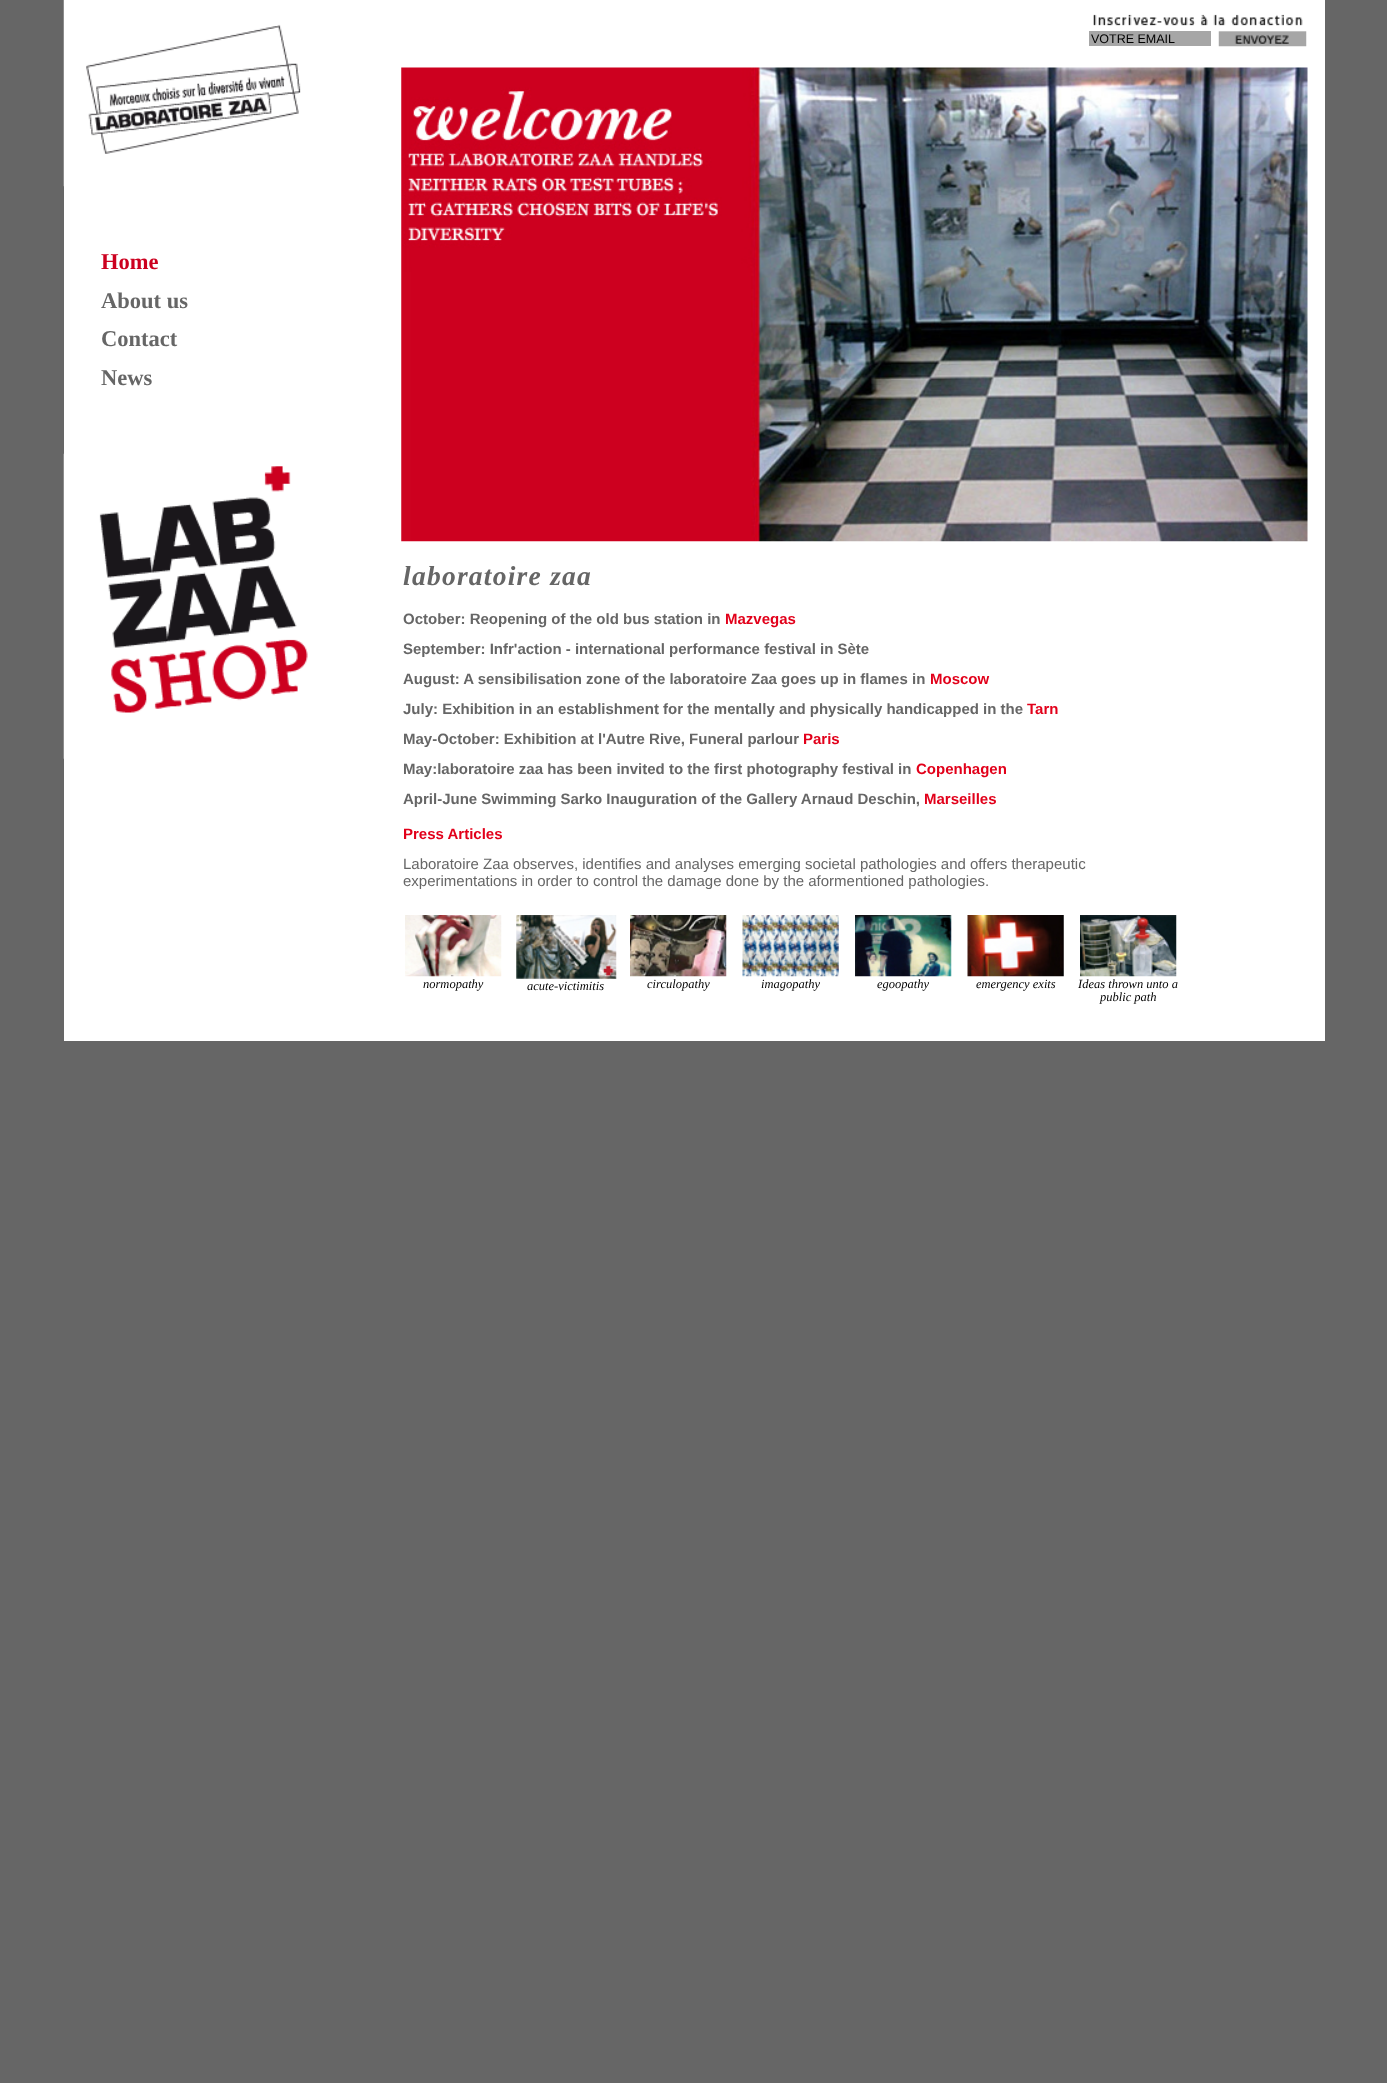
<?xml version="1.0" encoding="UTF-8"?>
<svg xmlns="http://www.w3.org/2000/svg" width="1387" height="2083">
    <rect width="100%" height="100%" fill="#666666"/>
    <rect x="64" y="0" width="1261" height="1041" fill="#FFFFFF"/>
    <image x="1093" y="14" width="210" height="12" href="img_01.png"/>
    <rect x="1089" y="31" width="122" height="15" fill="#A6A6A6"/>
    <text x="1091" y="43" font-family="Liberation Sans" font-size="12.5" fill="#000000">VOTRE EMAIL</text>
    <image x="1218" y="31" width="89" height="16" href="img_02.png"/>
    <image x="63" y="0" width="238" height="187" href="img_03.png"/>
    <text x="101" y="269" font-family="Liberation Serif" font-size="22.5" font-weight="700" fill="#CC001F">Home</text>
    <text font-family="Liberation Serif" font-size="22.5" font-weight="700" fill="#666666">
        <tspan x="101" y="308">About us</tspan>
        <tspan x="101" y="346">Contact</tspan>
        <tspan x="101" y="385">News</tspan>
    </text>
    <image x="63" y="453" width="245" height="306" href="img_04.png"/>
    <image x="401" y="67" width="907" height="475" href="img_05.png"/>
    <text x="403" y="585" font-family="Liberation Serif" font-size="27.5" font-weight="700" font-style="italic" letter-spacing="1.25" fill="#666666">laboratoire zaa</text>
    <text x="403" y="624" font-family="Liberation Sans" font-size="15" font-weight="700" fill="#666666">October: Reopening of the old bus station in</text>
    <text x="725" y="624" font-family="Liberation Sans" font-size="15" font-weight="700" fill="#E2001A">Mazvegas</text>
    <text x="403" y="654" font-family="Liberation Sans" font-size="15" font-weight="700" fill="#666666">September: Infr'action - international performance festival in Sète</text>
    <text x="403" y="684" font-family="Liberation Sans" font-size="15" font-weight="700" fill="#666666">August: A sensibilisation zone of the laboratoire Zaa goes up in flames in</text>
    <text x="930" y="684" font-family="Liberation Sans" font-size="15" font-weight="700" fill="#E2001A">Moscow</text>
    <text x="403" y="714" font-family="Liberation Sans" font-size="15" font-weight="700" fill="#666666">July: Exhibition in an establishment for the mentally and physically handicapped in the</text>
    <text x="1027" y="714" font-family="Liberation Sans" font-size="15" font-weight="700" fill="#E2001A">Tarn</text>
    <text x="403" y="744" font-family="Liberation Sans" font-size="15" font-weight="700" fill="#666666">May-October: Exhibition at l'Autre Rive, Funeral parlour</text>
    <text x="803" y="744" font-family="Liberation Sans" font-size="15" font-weight="700" fill="#E2001A">Paris</text>
    <text x="403" y="774" font-family="Liberation Sans" font-size="15" font-weight="700" fill="#666666">May:laboratoire zaa has been invited to the first photography festival in</text>
    <text x="916" y="774" font-family="Liberation Sans" font-size="15" font-weight="700" fill="#E2001A">Copenhagen</text>
    <text x="403" y="804" font-family="Liberation Sans" font-size="15" font-weight="700" fill="#666666">April-June Swimming Sarko Inauguration of the Gallery Arnaud Deschin,</text>
    <text x="924" y="804" font-family="Liberation Sans" font-size="15" font-weight="700" fill="#E2001A">Marseilles</text>
    <text x="403" y="839" font-family="Liberation Sans" font-size="15" font-weight="700" fill="#E2001A">Press Articles</text>
    <text font-family="Liberation Sans" font-size="15" fill="#666666">
        <tspan x="403" y="869">Laboratoire Zaa observes, identifies and analyses emerging societal pathologies and offers therapeutic</tspan>
        <tspan x="403" y="886">experimentations in order to control the damage done by the aformentioned pathologies.</tspan>
    </text>
    <image x="405" y="915" width="97" height="62" href="img_06.png"/>
    <text x="423" y="988" font-family="Liberation Serif" font-size="12.5" font-style="italic" fill="#000000">normopathy</text>
    <image x="516" y="915" width="101" height="64" href="img_07.png"/>
    <text x="527" y="990" font-family="Liberation Serif" font-size="12.5" font-style="italic" fill="#000000">acute-victimitis</text>
    <image x="630" y="915" width="97" height="62" href="img_08.png"/>
    <text x="647" y="988" font-family="Liberation Serif" font-size="12.5" font-style="italic" fill="#000000">circulopathy</text>
    <image x="742" y="915" width="97" height="62" href="img_09.png"/>
    <text x="761" y="988" font-family="Liberation Serif" font-size="12.5" font-style="italic" fill="#000000">imagopathy</text>
    <image x="855" y="915" width="97" height="62" href="img_10.png"/>
    <text x="877" y="988" font-family="Liberation Serif" font-size="12.5" font-style="italic" fill="#000000">egoopathy</text>
    <image x="967" y="915" width="97" height="62" href="img_11.png"/>
    <text x="976" y="988" font-family="Liberation Serif" font-size="12.5" font-style="italic" fill="#000000">emergency exits</text>
    <image x="1080" y="915" width="97" height="62" href="img_12.png"/>
    <text x="1078" y="988" font-family="Liberation Serif" font-size="12.5" font-style="italic" fill="#000000">Ideas thrown unto a</text>
    <text x="1100" y="1001" font-family="Liberation Serif" font-size="12.5" font-style="italic" fill="#000000">public path</text>
</svg>
